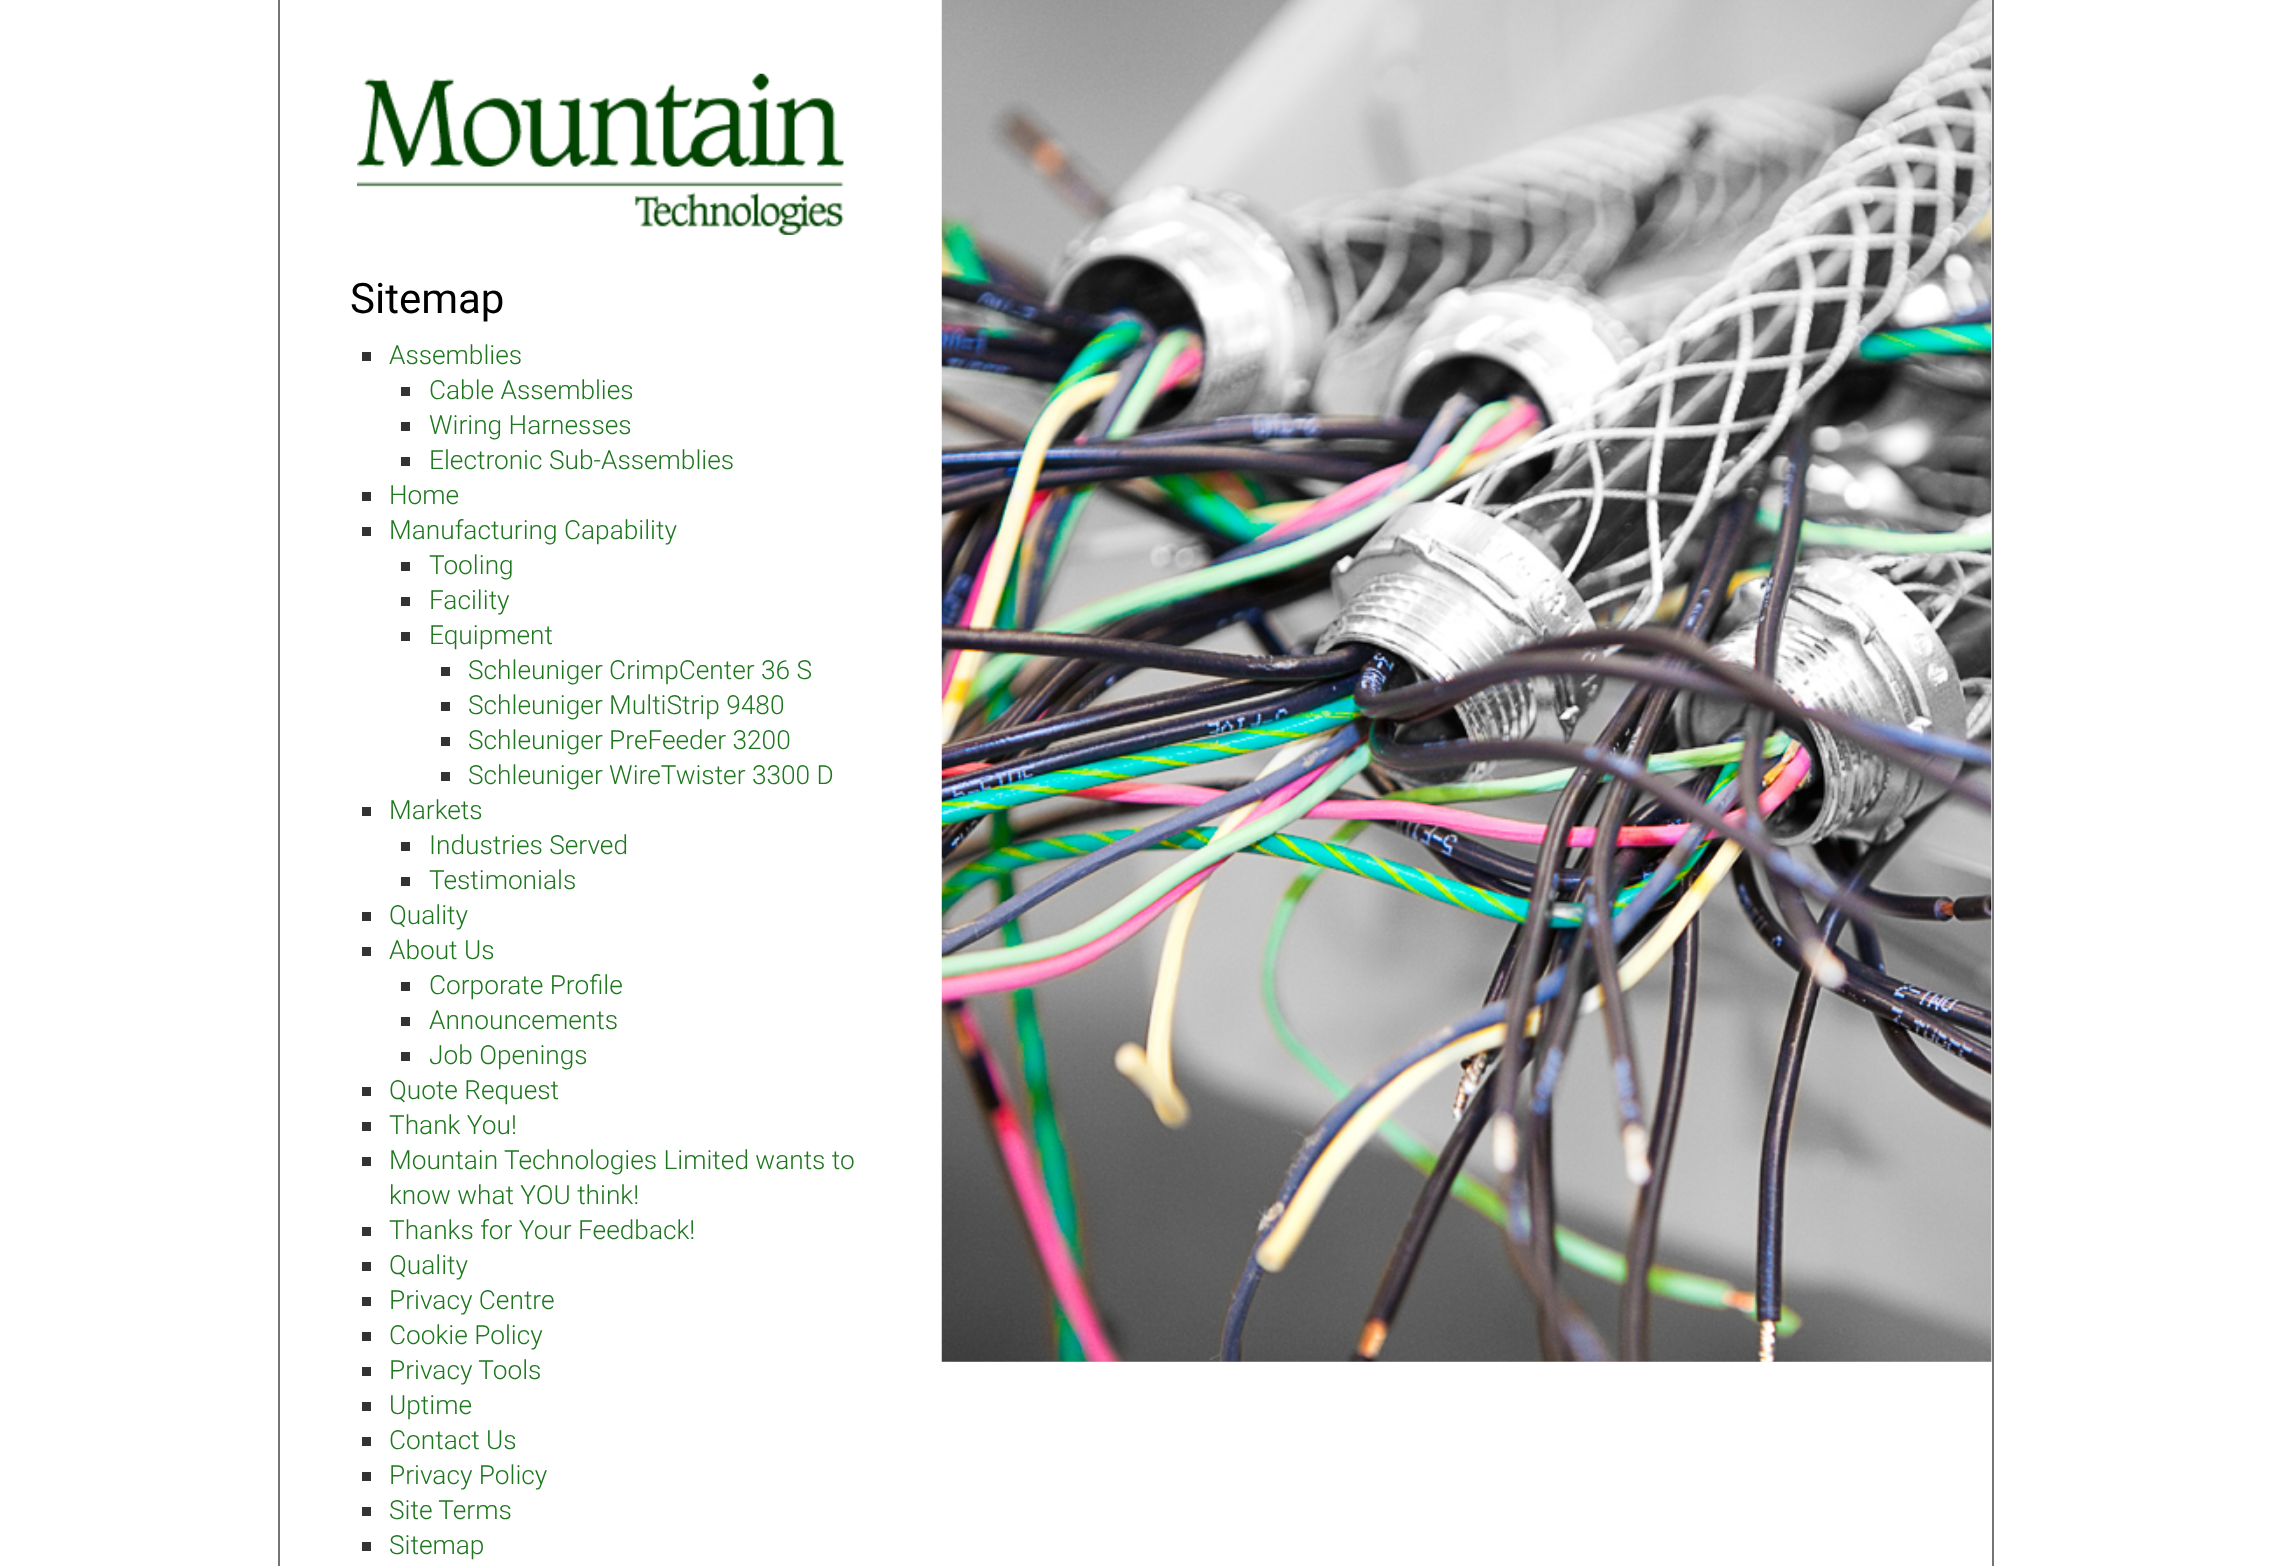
<?xml version="1.0" encoding="UTF-8"?>
<svg xmlns="http://www.w3.org/2000/svg" width="2270" height="1566">
    <rect width="100%" height="100%" fill="#FFFFFF"/>
    <rect x="1992" y="0" width="2" height="1566" fill="#757575"/>
    <rect x="278" y="0" width="2" height="1566" fill="#757575"/>
    <image x="357" y="73" width="487" height="162" href="img_01.png"/>
    <rect x="942" y="0" width="1050" height="1362" fill="#EEEEEE"/>
    <image x="941" y="0" width="1051" height="1362" href="img_02.png"/>
    <text x="350" y="313" font-family="Roboto" font-size="42" fill="#000000">Sitemap</text>
    <rect x="362" y="352" width="9" height="9" fill="#333333"/>
    <text x="389" y="364" font-family="Roboto" font-size="26.25" font-weight="300" fill="#1E771E">Assemblies</text>
    <rect x="401" y="387" width="9" height="9" fill="#333333"/>
    <text x="429" y="399" font-family="Roboto" font-size="26.25" font-weight="300" fill="#1E771E">Cable Assemblies</text>
    <rect x="401" y="422" width="9" height="9" fill="#333333"/>
    <text x="429" y="434" font-family="Roboto" font-size="26.25" font-weight="300" fill="#1E771E">Wiring Harnesses</text>
    <rect x="401" y="457" width="9" height="9" fill="#333333"/>
    <text x="429" y="469" font-family="Roboto" font-size="26.25" font-weight="300" fill="#1E771E">Electronic Sub-Assemblies</text>
    <rect x="362" y="492" width="9" height="9" fill="#333333"/>
    <text x="389" y="504" font-family="Roboto" font-size="26.25" font-weight="300" fill="#1E771E">Home</text>
    <rect x="362" y="527" width="9" height="9" fill="#333333"/>
    <text x="389" y="539" font-family="Roboto" font-size="26.25" font-weight="300" fill="#1E771E">Manufacturing Capability</text>
    <rect x="401" y="562" width="9" height="9" fill="#333333"/>
    <text x="429" y="574" font-family="Roboto" font-size="26.25" font-weight="300" fill="#1E771E">Tooling</text>
    <rect x="401" y="597" width="9" height="9" fill="#333333"/>
    <text x="429" y="609" font-family="Roboto" font-size="26.25" font-weight="300" fill="#1E771E">Facility</text>
    <rect x="401" y="632" width="9" height="9" fill="#333333"/>
    <text x="429" y="644" font-family="Roboto" font-size="26.25" font-weight="300" fill="#1E771E">Equipment</text>
    <rect x="441" y="667" width="9" height="9" fill="#333333"/>
    <text x="468" y="679" font-family="Roboto" font-size="26.25" font-weight="300" fill="#1E771E">Schleuniger CrimpCenter 36 S</text>
    <rect x="441" y="702" width="9" height="9" fill="#333333"/>
    <text x="468" y="714" font-family="Roboto" font-size="26.25" font-weight="300" fill="#1E771E">Schleuniger MultiStrip 9480</text>
    <rect x="441" y="737" width="9" height="9" fill="#333333"/>
    <text x="468" y="749" font-family="Roboto" font-size="26.25" font-weight="300" fill="#1E771E">Schleuniger PreFeeder 3200</text>
    <rect x="441" y="772" width="9" height="9" fill="#333333"/>
    <text x="468" y="784" font-family="Roboto" font-size="26.25" font-weight="300" fill="#1E771E">Schleuniger WireTwister 3300 D</text>
    <rect x="362" y="807" width="9" height="9" fill="#333333"/>
    <text x="389" y="819" font-family="Roboto" font-size="26.25" font-weight="300" fill="#1E771E">Markets</text>
    <rect x="401" y="842" width="9" height="9" fill="#333333"/>
    <text x="429" y="854" font-family="Roboto" font-size="26.25" font-weight="300" fill="#1E771E">Industries Served</text>
    <rect x="401" y="877" width="9" height="9" fill="#333333"/>
    <text x="429" y="889" font-family="Roboto" font-size="26.25" font-weight="300" fill="#1E771E">Testimonials</text>
    <rect x="362" y="912" width="9" height="9" fill="#333333"/>
    <text x="389" y="924" font-family="Roboto" font-size="26.25" font-weight="300" fill="#1E771E">Quality</text>
    <rect x="362" y="947" width="9" height="9" fill="#333333"/>
    <text x="389" y="959" font-family="Roboto" font-size="26.25" font-weight="300" fill="#1E771E">About Us</text>
    <rect x="401" y="982" width="9" height="9" fill="#333333"/>
    <text x="429" y="994" font-family="Roboto" font-size="26.25" font-weight="300" fill="#1E771E">Corporate Profile</text>
    <rect x="401" y="1017" width="9" height="9" fill="#333333"/>
    <text x="429" y="1029" font-family="Roboto" font-size="26.25" font-weight="300" fill="#1E771E">Announcements</text>
    <rect x="401" y="1052" width="9" height="9" fill="#333333"/>
    <text x="429" y="1064" font-family="Roboto" font-size="26.25" font-weight="300" fill="#1E771E">Job Openings</text>
    <rect x="362" y="1087" width="9" height="9" fill="#333333"/>
    <text x="389" y="1099" font-family="Roboto" font-size="26.25" font-weight="300" fill="#1E771E">Quote Request</text>
    <rect x="362" y="1122" width="9" height="9" fill="#333333"/>
    <text x="389" y="1134" font-family="Roboto" font-size="26.25" font-weight="300" fill="#1E771E">Thank You!</text>
    <rect x="362" y="1157" width="9" height="9" fill="#333333"/>
    <text font-family="Roboto" font-size="26.25" font-weight="300" fill="#1E771E">
        <tspan x="389" y="1169">Mountain Technologies Limited wants to</tspan>
        <tspan x="389" y="1204">know what YOU think!</tspan>
    </text>
    <rect x="362" y="1227" width="9" height="9" fill="#333333"/>
    <text x="389" y="1239" font-family="Roboto" font-size="26.25" font-weight="300" fill="#1E771E">Thanks for Your Feedback!</text>
    <rect x="362" y="1262" width="9" height="9" fill="#333333"/>
    <text x="389" y="1274" font-family="Roboto" font-size="26.25" font-weight="300" fill="#1E771E">Quality</text>
    <rect x="362" y="1297" width="9" height="9" fill="#333333"/>
    <text x="389" y="1309" font-family="Roboto" font-size="26.25" font-weight="300" fill="#1E771E">Privacy Centre</text>
    <rect x="362" y="1332" width="9" height="9" fill="#333333"/>
    <text x="389" y="1344" font-family="Roboto" font-size="26.25" font-weight="300" fill="#1E771E">Cookie Policy</text>
    <rect x="362" y="1367" width="9" height="9" fill="#333333"/>
    <text x="389" y="1379" font-family="Roboto" font-size="26.25" font-weight="300" fill="#1E771E">Privacy Tools</text>
    <rect x="362" y="1402" width="9" height="9" fill="#333333"/>
    <text x="389" y="1414" font-family="Roboto" font-size="26.25" font-weight="300" fill="#1E771E">Uptime</text>
    <rect x="362" y="1437" width="9" height="9" fill="#333333"/>
    <text x="389" y="1449" font-family="Roboto" font-size="26.25" font-weight="300" fill="#1E771E">Contact Us</text>
    <rect x="362" y="1472" width="9" height="9" fill="#333333"/>
    <text x="389" y="1484" font-family="Roboto" font-size="26.25" font-weight="300" fill="#1E771E">Privacy Policy</text>
    <rect x="362" y="1507" width="9" height="9" fill="#333333"/>
    <text x="389" y="1519" font-family="Roboto" font-size="26.25" font-weight="300" fill="#1E771E">Site Terms</text>
    <rect x="362" y="1542" width="9" height="9" fill="#333333"/>
    <text x="389" y="1554" font-family="Roboto" font-size="26.25" font-weight="300" fill="#1E771E">Sitemap</text>
</svg>
